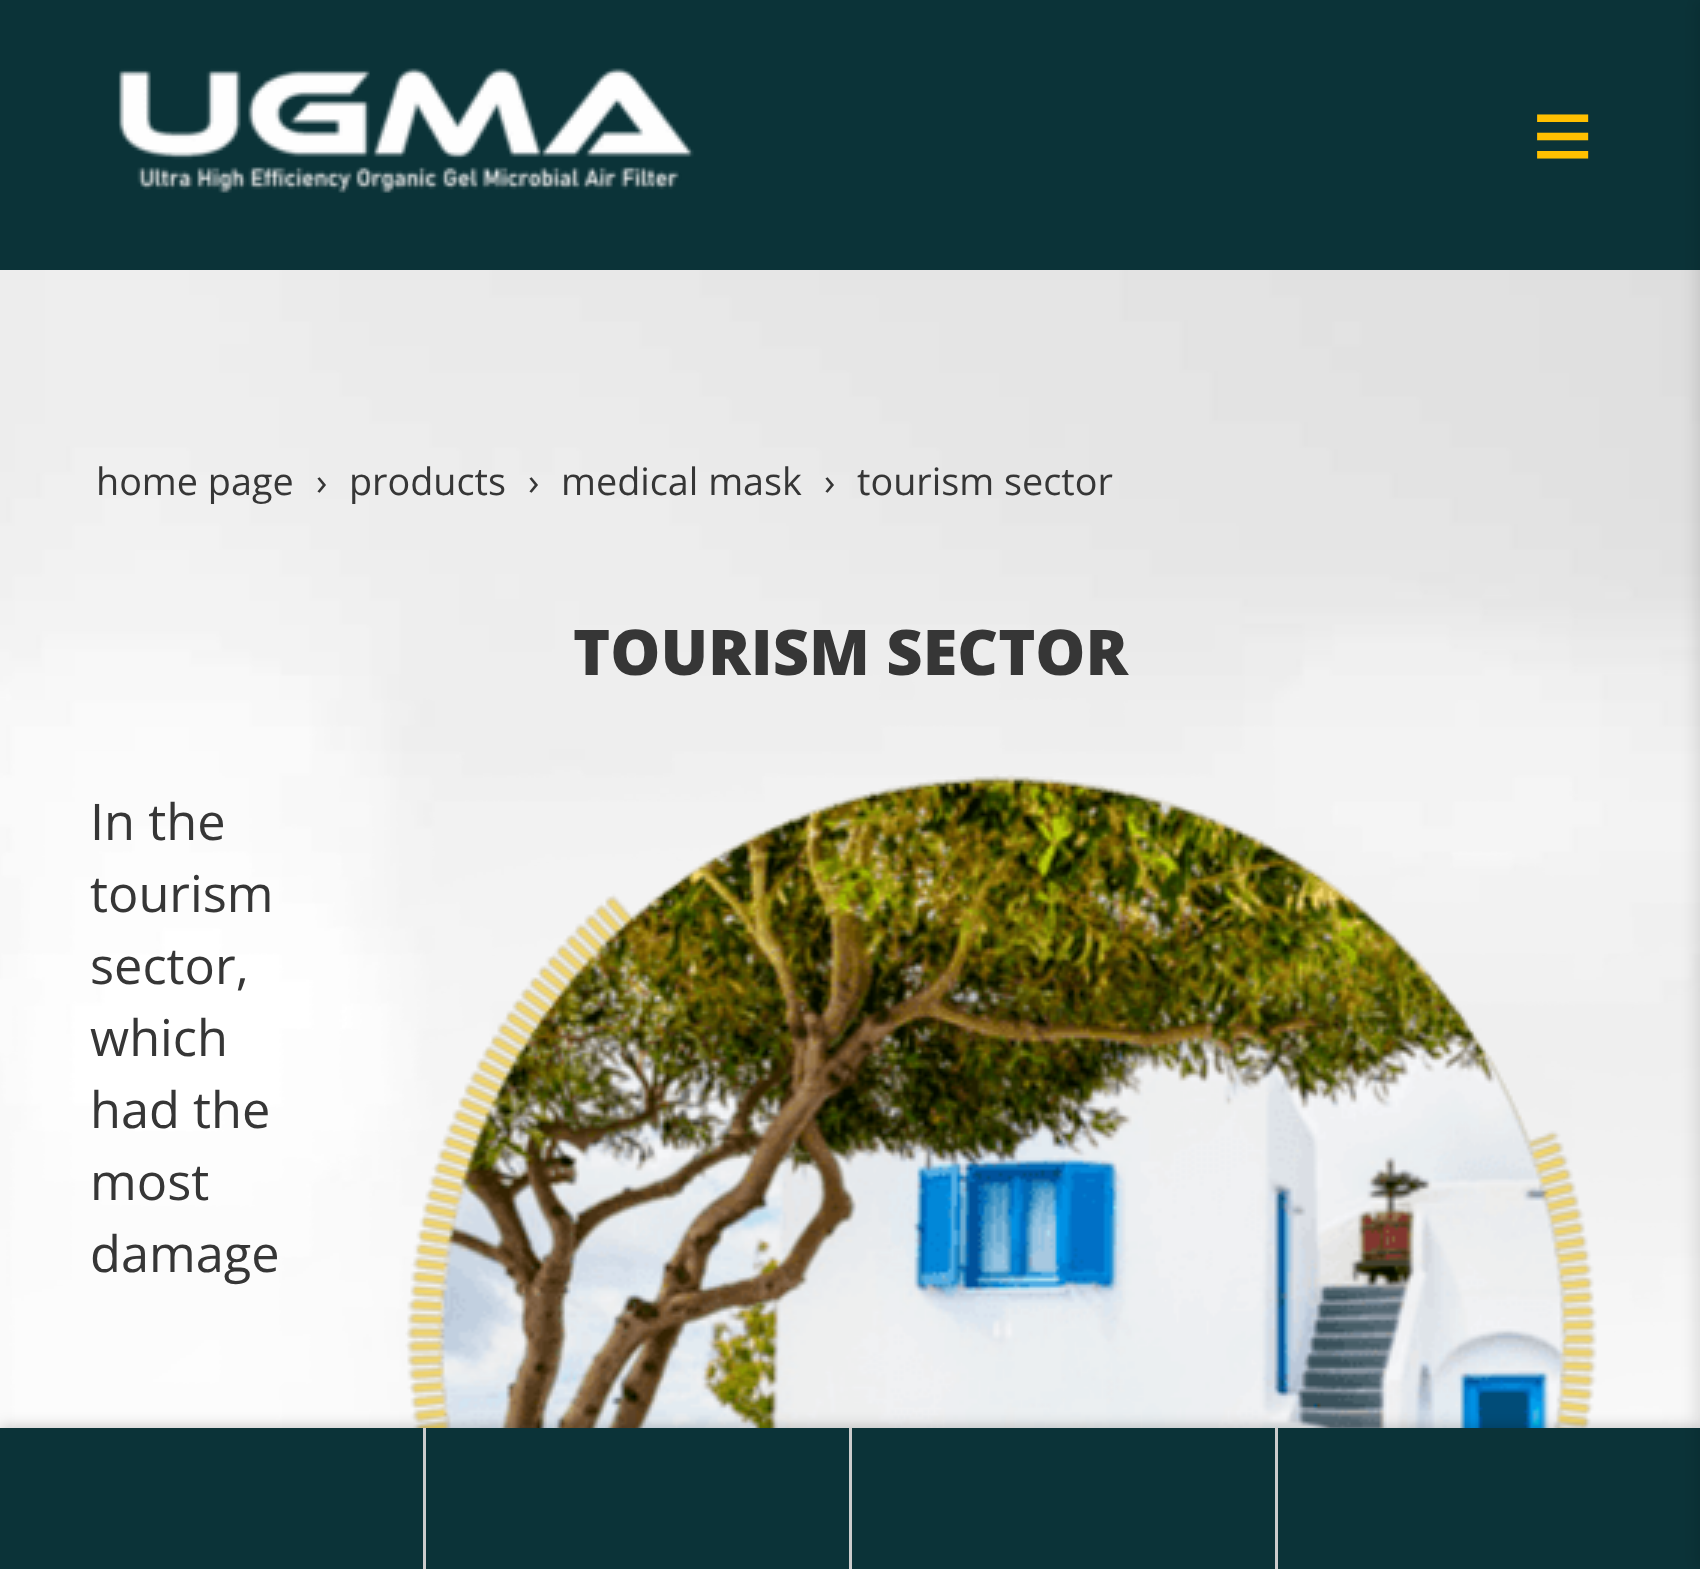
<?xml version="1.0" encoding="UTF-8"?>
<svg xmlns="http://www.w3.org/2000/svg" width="1700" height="1569">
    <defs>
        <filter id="blur1" x="-50%" y="-200%" width="200%" height="500%"><feGaussianBlur stdDeviation="7.5"/></filter>
    </defs>
    <rect width="100%" height="100%" fill="#FFFFFF"/>
    <rect x="0" y="0" width="1700" height="270" fill="#0B3338"/>
    <image x="118" y="68" width="576" height="125" href="img_01.png"/>
    <text x="1532" y="171" font-family="Liberation Sans" font-size="105" fill="#FFC000">≡</text>
    <image x="0" y="270" width="1700" height="1158" href="img_02.png"/>
    <text x="96" y="495" font-family="Open Sans" font-size="37.75" fill="#363636">home page</text>
    <text x="316" y="495" font-family="Open Sans" font-size="37.75" fill="#363636">›</text>
    <text x="349" y="495" font-family="Open Sans" font-size="37.75" fill="#363636">products</text>
    <text x="528" y="495" font-family="Open Sans" font-size="37.75" fill="#363636">›</text>
    <text x="561" y="495" font-family="Open Sans" font-size="37.75" fill="#363636">medical mask</text>
    <text x="824" y="495" font-family="Open Sans" font-size="37.75" fill="#363636">›</text>
    <text x="857" y="495" font-family="Open Sans" font-size="37.75" fill="#363636">tourism sector</text>
    <text x="573" y="675" font-family="Open Sans" font-size="63" font-weight="800" fill="#363636">TOURISM SECTOR</text>
    <text font-family="Open Sans" font-size="50.5" fill="#363636">
        <tspan x="90" y="840">In the</tspan>
        <tspan x="90" y="912">tourism</tspan>
        <tspan x="90" y="984">sector,</tspan>
        <tspan x="90" y="1056">which</tspan>
        <tspan x="90" y="1128">had the</tspan>
        <tspan x="90" y="1200">most</tspan>
        <tspan x="90" y="1272">damage</tspan>
    </text>
    <image x="405" y="774" width="1192" height="654" href="img_03.png"/>
    <rect x="0" y="1428" width="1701" height="141" fill="#000000" fill-opacity="0.25" filter="url(#blur1)"/>
    <rect x="0" y="1428" width="1700" height="141" fill="#0B3338"/>
    <rect x="423" y="1428" width="3" height="141" fill="#CCCCCC"/>
    <rect x="849" y="1428" width="3" height="141" fill="#CCCCCC"/>
    <rect x="1275" y="1428" width="3" height="141" fill="#CCCCCC"/>
    <rect x="1695" y="0" width="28" height="1569" fill="#000000" fill-opacity="0.1" filter="url(#blur1)"/>
</svg>
